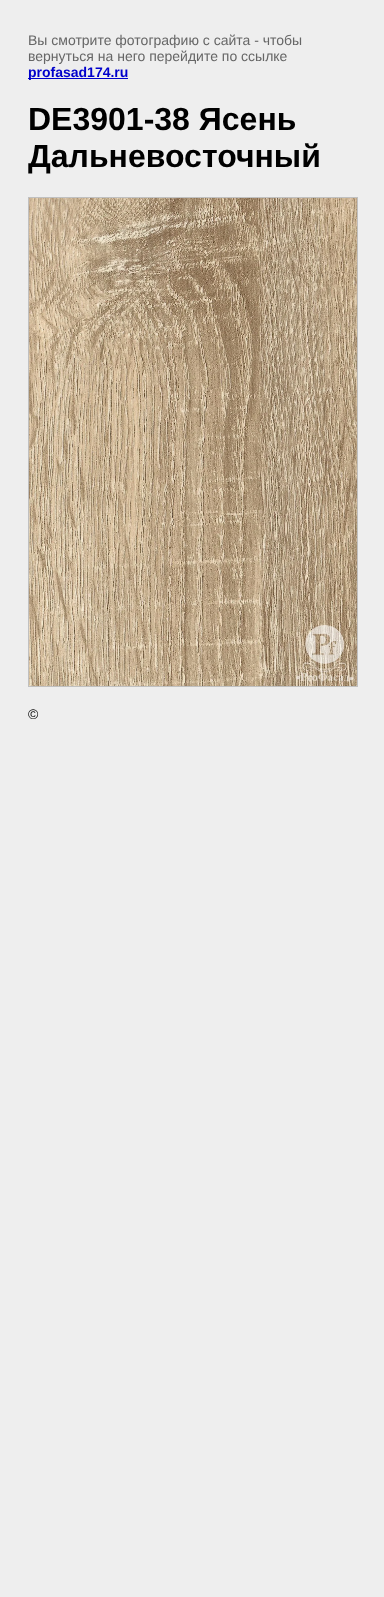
<?xml version="1.0" encoding="UTF-8"?>
<svg xmlns="http://www.w3.org/2000/svg" width="384" height="1597">
    <rect width="100%" height="100%" fill="#EEEEEE"/>
    <text font-family="Liberation Sans" font-size="14" fill="#666666">
        <tspan x="28" y="45">Вы смотрите фотографию с сайта - чтобы</tspan>
        <tspan x="28" y="61">вернуться на него перейдите по ссылке</tspan>
    </text>
    <rect x="28" y="78" width="100" height="1" fill="#0000CC"/>
    <text x="28" y="77" font-family="Liberation Sans" font-size="14" font-weight="700" fill="#0000CC">profasad174.ru</text>
    <text font-family="Liberation Sans" font-size="32" font-weight="700" fill="#000000">
        <tspan x="28" y="130">DE3901-38 Ясень</tspan>
        <tspan x="28" y="167">Дальневосточный</tspan>
    </text>
    <rect x="28.5" y="197.5" width="329" height="489" fill="none" stroke="#C0C0C0"/>
    <image x="29" y="198" width="328" height="488" href="img_01.png"/>
    <text x="28" y="719" font-family="Liberation Sans" font-size="14" fill="#000000">©</text>
</svg>
